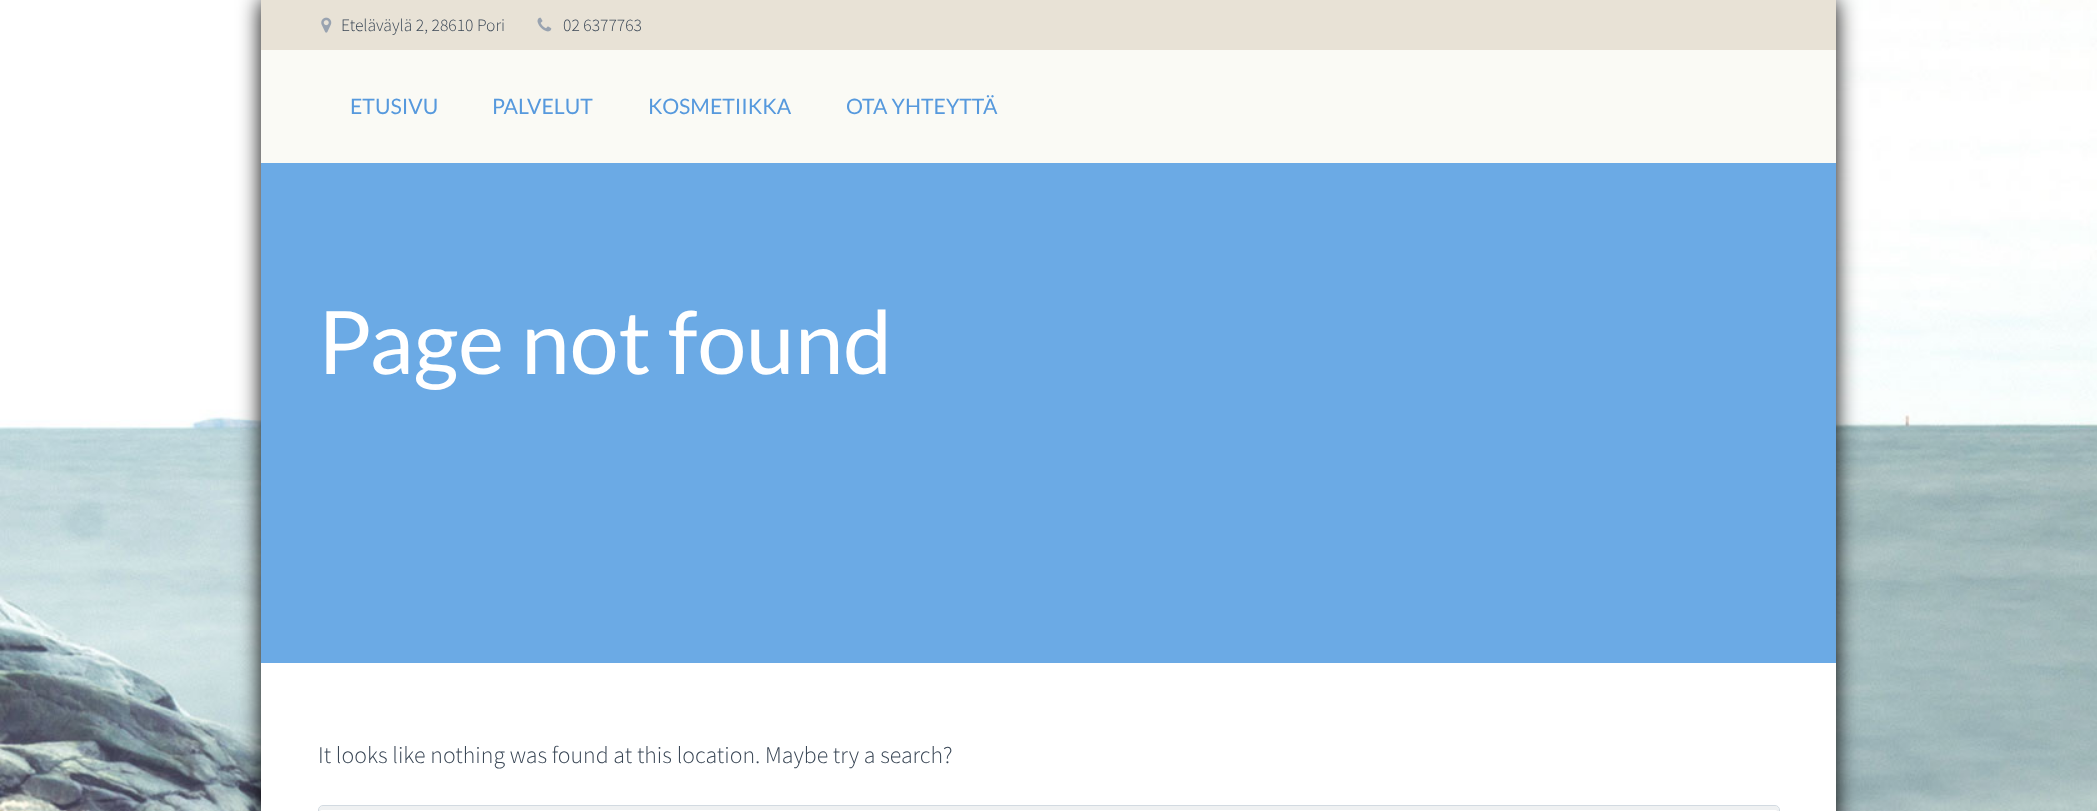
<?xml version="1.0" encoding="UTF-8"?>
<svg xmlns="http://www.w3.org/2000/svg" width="2097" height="811">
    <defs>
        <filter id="blur1" x="-50%" y="-200%" width="200%" height="500%"><feGaussianBlur stdDeviation="11"/></filter>
    </defs>
    <rect width="100%" height="100%" fill="#FFFFFF"/>
    <image x="0" y="0" width="2097" height="811" href="img_01.png"/>
    <rect x="261" y="0" width="1575" height="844" fill="#000000" filter="url(#blur1)"/>
    <rect x="261" y="0" width="1575" height="50" fill="#E8E2D6"/>
    <image x="321" y="17" width="11" height="16" href="img_02.png"/>
    <text x="341" y="31" font-family="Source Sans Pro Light" font-size="17.5" font-weight="300" fill="#384554">Eteläväylä 2, 28610 Pori</text>
    <image x="537" y="17" width="15" height="15" href="img_03.png"/>
    <text x="563" y="31" font-family="Source Sans Pro Light" font-size="17.5" font-weight="300" fill="#384554">02 6377763</text>
    <rect x="261" y="50" width="1575" height="113" fill="#FAFAF5"/>
    <text x="350" y="114" font-family="Lato" font-size="21.25" fill="#5699DD">ETUSIVU</text>
    <text x="492" y="114" font-family="Lato" font-size="21.25" fill="#5699DD">PALVELUT</text>
    <text x="648" y="114" font-family="Lato" font-size="21.25" fill="#5699DD">KOSMETIIKKA</text>
    <text x="846" y="114" font-family="Lato" font-size="21.25" fill="#5699DD">OTA YHTEYTTÄ</text>
    <rect x="261" y="163" width="1575" height="500" fill="#6BAAE5"/>
    <text x="318" y="374" font-family="Lato" font-size="87.5" fill="#FFFFFF">Page not found</text>
    <rect x="261" y="663" width="1575" height="148" fill="#FFFFFF"/>
    <text x="318" y="763" font-family="Source Sans Pro Light" font-size="23.75" font-weight="300" fill="#384554">It looks like nothing was found at this location. Maybe try a search?</text>
    <path d="M 322 810 H 1775 C 1777 810 1779 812 1779 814 V 810 C 1779 808 1777 806 1775 806 H 323 C 321 806 319 808 319 810 V 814 C 319 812 320 810 322 810 Z" fill="#EFF1F2"/>
    <rect x="318.5" y="805.5" width="1461" height="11" rx="4.5" fill="none" stroke="#D2DAE1"/>
</svg>
